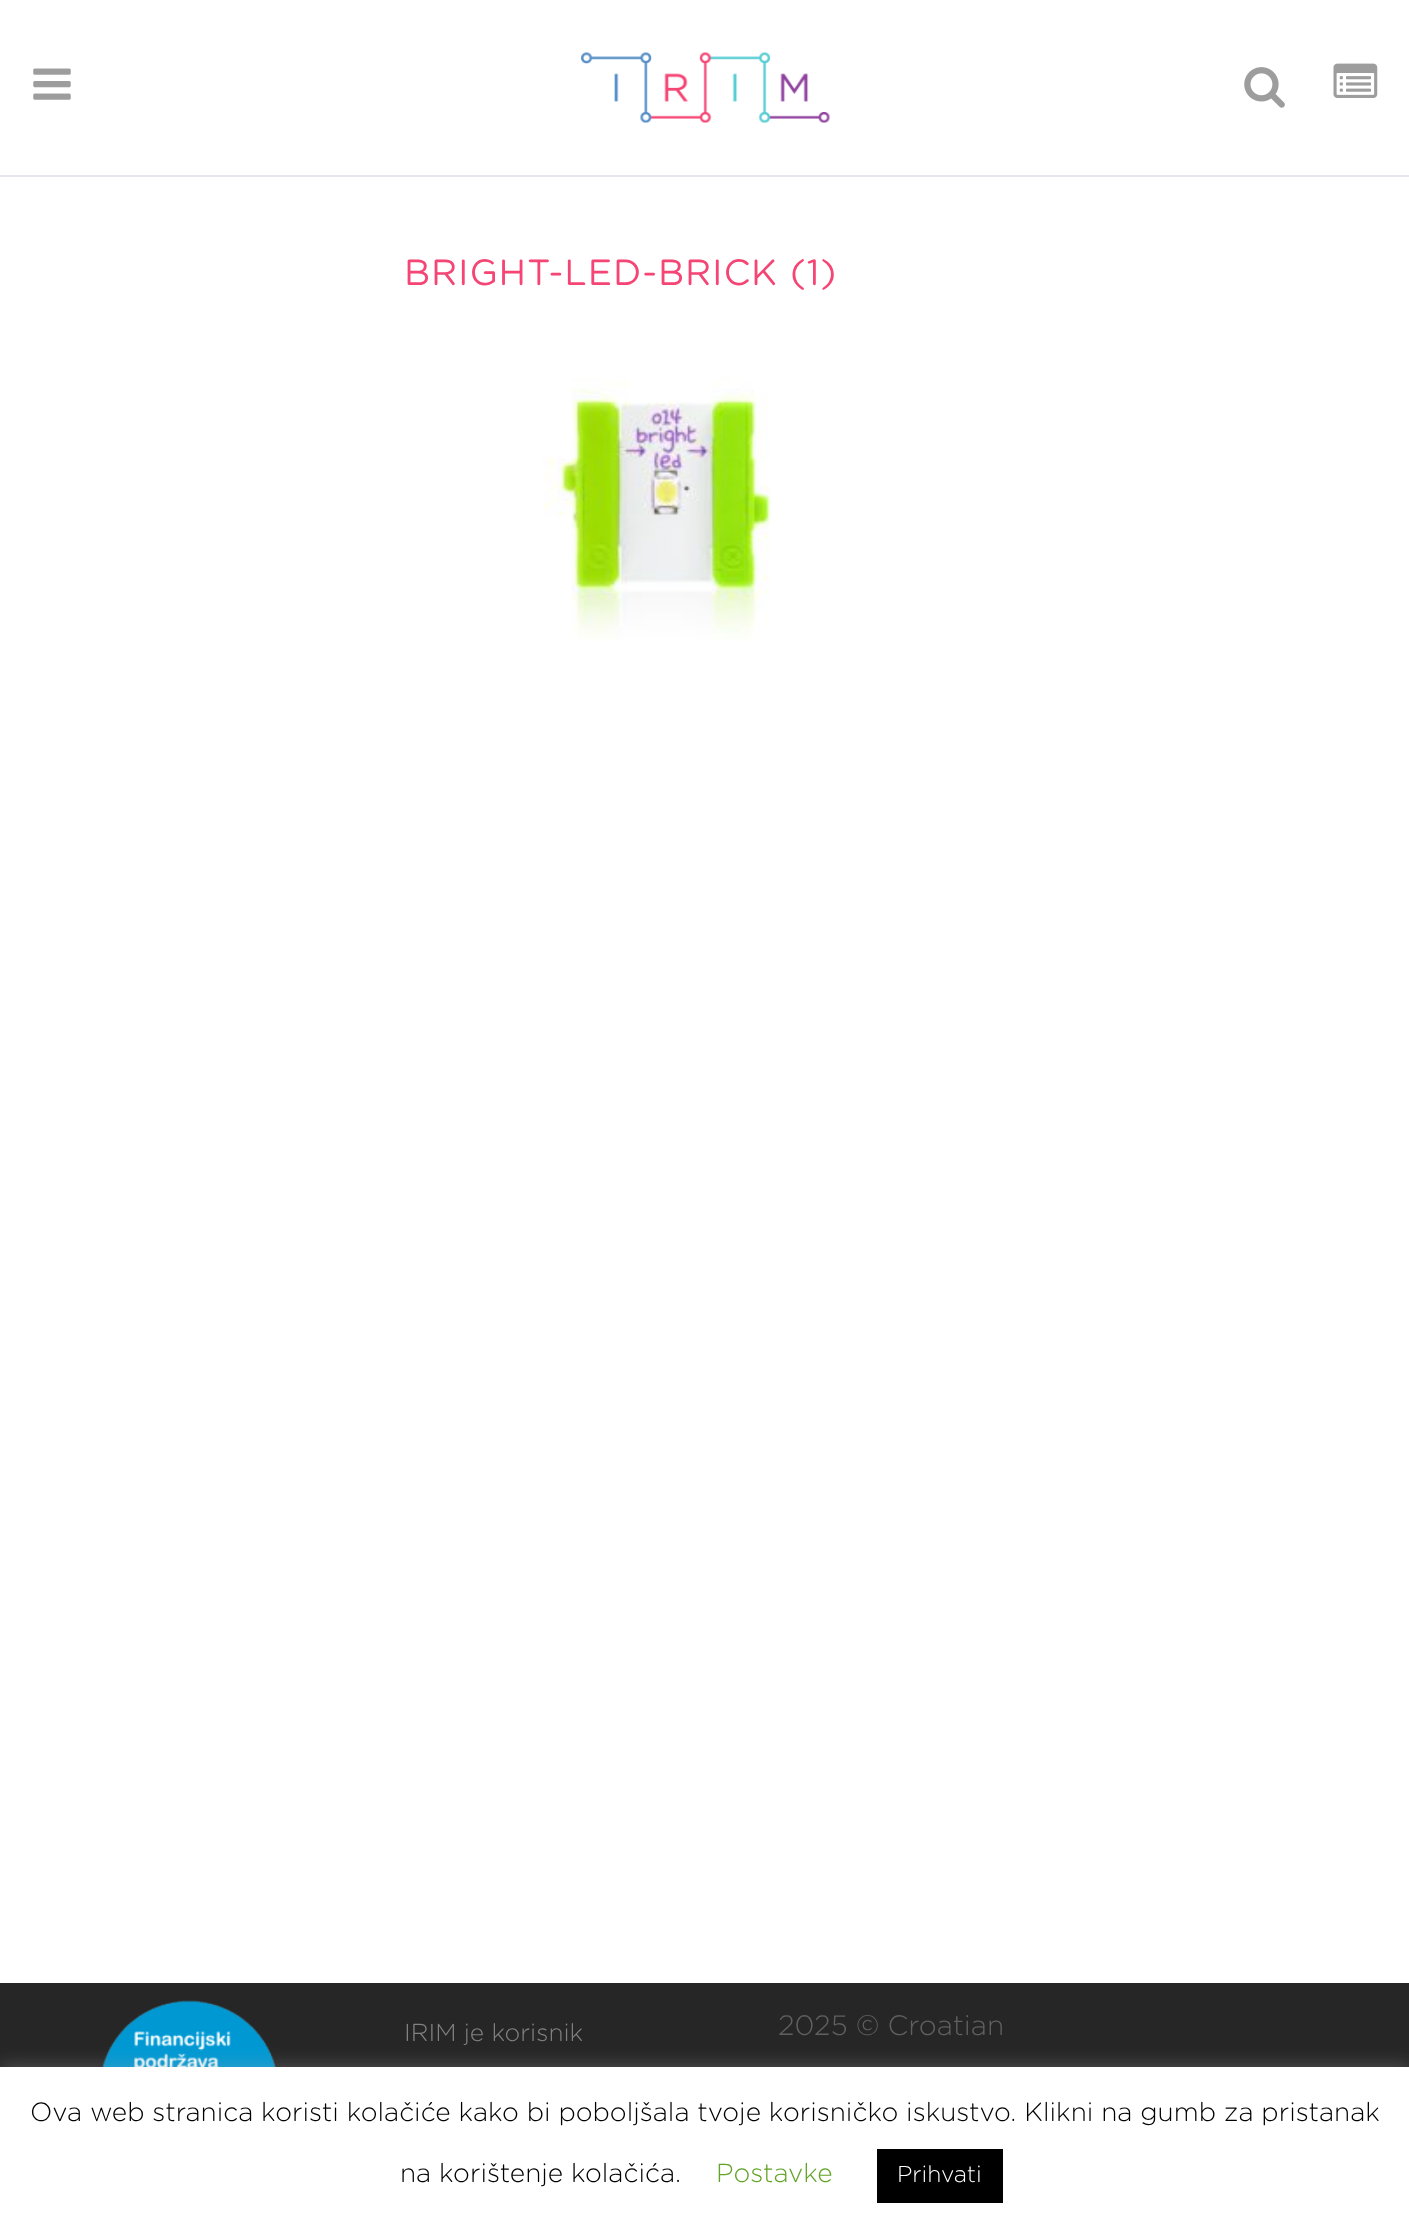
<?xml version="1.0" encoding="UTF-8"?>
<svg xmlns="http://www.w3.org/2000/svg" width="1409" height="2233">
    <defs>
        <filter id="blur1" x="-50%" y="-200%" width="200%" height="500%"><feGaussianBlur stdDeviation="9"/></filter>
    </defs>
    <rect width="100%" height="100%" fill="#FFFFFF"/>
    <rect x="0" y="175" width="1409" height="2" fill="#E5E7ED"/>
    <image x="33" y="68" width="38" height="32" href="img_01.png"/>
    <image x="581" y="52" width="249" height="71" href="img_02.png"/>
    <image x="1244" y="67" width="41" height="41" href="img_03.png"/>
    <image x="1333" y="63" width="45" height="35" href="img_04.png"/>
    <text x="404" y="285" font-family="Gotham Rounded" font-size="35" font-weight="700" letter-spacing="1.75" fill="#F44574">BRIGHT-LED-BRICK (1)</text>
    <image x="543" y="375" width="228" height="266" href="img_05.png"/>
    <rect x="0" y="1983" width="1409" height="84" fill="#262626"/>
    <image x="102" y="2000" width="174" height="67" href="img_06.png"/>
    <text x="404" y="2041" font-family="Gotham Rounded" font-size="24.5" font-weight="300" fill="#818181">IRIM je korisnik</text>
    <text x="778" y="2035" font-family="Gotham Rounded" font-size="28" font-weight="300" fill="#606060">2025 © Croatian</text>
    <rect x="0" y="2065" width="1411" height="166" fill="#ACABAB" fill-opacity="0.3" filter="url(#blur1)"/>
    <rect x="0" y="2067" width="1409" height="166" fill="#FFFFFF"/>
    <text x="30" y="2121" font-family="Gotham Rounded" font-size="26.25" font-weight="300" fill="#000000">Ova web stranica koristi kolačiće kako bi poboljšala tvoje korisničko iskustvo. Klikni na gumb za pristanak</text>
    <text x="400" y="2182" font-family="Gotham Rounded" font-size="26.25" font-weight="300" fill="#000000">na korištenje kolačića.</text>
    <text x="716" y="2182" font-family="Gotham Rounded" font-size="26.25" font-weight="300" fill="#62A329">Postavke</text>
    <rect x="877" y="2149" width="126" height="54" fill="#000000"/>
    <text x="897" y="2182" font-family="Gotham Rounded" font-size="23" font-weight="300" fill="#FFFFFF">Prihvati</text>
</svg>
